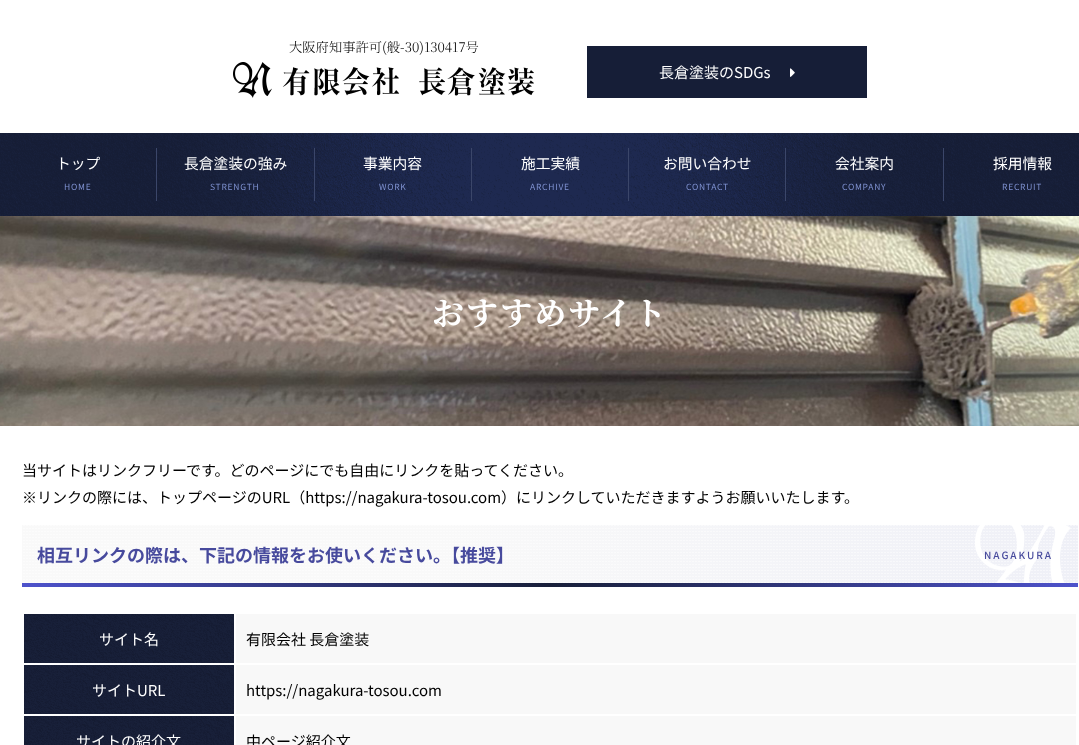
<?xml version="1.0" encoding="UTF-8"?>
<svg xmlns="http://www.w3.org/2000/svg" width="1079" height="745">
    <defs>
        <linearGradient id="g1" gradientUnits="userSpaceOnUse" x1="22" y1="585" x2="1078" y2="585"><stop offset="0" stop-color="#4D52CB"/><stop offset="0.5" stop-color="#181F39"/><stop offset="1" stop-color="#4D52CB"/></linearGradient>
    </defs>
    <rect width="100%" height="100%" fill="#FFFFFF"/>
    <text x="289" y="52" font-family="Noto Serif JP" font-size="13.3" font-weight="300" fill="#000000">大阪府知事許可(般-30)130417号</text>
    <image x="233" y="62" width="302" height="36" href="img_01.png"/>
    <rect x="587" y="46" width="280" height="52" fill="#161E37"/>
    <text x="659" y="78" font-family="Noto Sans JP" font-size="15" fill="#FFFFFF">長倉塗装のSDGs</text>
    <image x="790" y="68" width="5" height="9" href="img_02.png"/>
    <image x="0" y="133" width="1079" height="83" href="img_03.png"/>
    <text x="56" y="169" font-family="Noto Sans JP" font-size="14.75" fill="#FFFFFF">トップ</text>
    <text x="64" y="190" font-family="Noto Sans JP" font-size="8.5" letter-spacing="0.75" fill="#8093D2">HOME</text>
    <rect x="156" y="148" width="1" height="53" fill="#3B4669"/>
    <text x="184" y="169" font-family="Noto Sans JP" font-size="14.75" fill="#FFFFFF">長倉塗装の強み</text>
    <text x="210" y="190" font-family="Noto Sans JP" font-size="8.5" letter-spacing="0.75" fill="#8093D2">STRENGTH</text>
    <rect x="314" y="148" width="1" height="53" fill="#3B4669"/>
    <text x="363" y="169" font-family="Noto Sans JP" font-size="14.75" fill="#FFFFFF">事業内容</text>
    <text x="379" y="190" font-family="Noto Sans JP" font-size="8.5" letter-spacing="0.75" fill="#8093D2">WORK</text>
    <rect x="471" y="148" width="1" height="53" fill="#3B4669"/>
    <text x="521" y="169" font-family="Noto Sans JP" font-size="14.75" fill="#FFFFFF">施工実績</text>
    <text x="530" y="190" font-family="Noto Sans JP" font-size="8.5" letter-spacing="0.75" fill="#8093D2">ARCHIVE</text>
    <rect x="628" y="148" width="1" height="53" fill="#3B4669"/>
    <text x="663" y="169" font-family="Noto Sans JP" font-size="14.75" fill="#FFFFFF">お問い合わせ</text>
    <text x="686" y="190" font-family="Noto Sans JP" font-size="8.5" letter-spacing="0.75" fill="#8093D2">CONTACT</text>
    <rect x="785" y="148" width="1" height="53" fill="#3B4669"/>
    <text x="835" y="169" font-family="Noto Sans JP" font-size="14.75" fill="#FFFFFF">会社案内</text>
    <text x="842" y="190" font-family="Noto Sans JP" font-size="8.5" letter-spacing="0.75" fill="#8093D2">COMPANY</text>
    <rect x="943" y="148" width="1" height="53" fill="#3B4669"/>
    <text x="993" y="169" font-family="Noto Sans JP" font-size="14.75" fill="#FFFFFF">採用情報</text>
    <text x="1002" y="190" font-family="Noto Sans JP" font-size="8.5" letter-spacing="0.75" fill="#8093D2">RECRUIT</text>
    <image x="0" y="216" width="1079" height="210" href="img_04.png"/>
    <text x="432" y="325" font-family="Noto Serif JP" font-size="32" font-weight="700" letter-spacing="2" fill="#FFFFFF">おすすめサイト</text>
    <text font-family="Noto Sans JP" font-size="15" fill="#000000">
        <tspan x="22" y="476">当サイトはリンクフリーです。どのページにでも自由にリンクを貼ってください。</tspan>
        <tspan x="22" y="503">※リンクの際には、トップページのURL（https://nagakura-tosou.com）にリンクしていただきますようお願いいたします。</tspan>
    </text>
    <image x="22" y="525" width="1056" height="58" href="img_05.png"/>
    <text x="37" y="562" font-family="Noto Sans JP" font-size="18" font-weight="700" fill="#474A9D">相互リンクの際は、下記の情報をお使いください。【推奨】</text>
    <text x="984" y="559" font-family="Noto Sans JP" font-size="10" font-weight="500" letter-spacing="2" fill="#474A9D">NAGAKURA</text>
    <rect x="22" y="583" width="1056" height="4" fill="url(#g1)"/>
    <image x="24" y="614" width="210" height="49" href="img_06.png"/>
    <text x="99" y="645" font-family="Noto Sans JP" font-size="15" fill="#FFFFFF">サイト名</text>
    <rect x="236" y="614" width="840" height="49" fill="#F8F8F8"/>
    <text x="246" y="645" font-family="Noto Sans JP" font-size="15" fill="#000000">有限会社 長倉塗装</text>
    <image x="24" y="665" width="210" height="49" href="img_06.png"/>
    <text x="92" y="696" font-family="Noto Sans JP" font-size="15" fill="#FFFFFF">サイトURL</text>
    <rect x="236" y="665" width="840" height="49" fill="#F8F8F8"/>
    <text x="246" y="696" font-family="Noto Sans JP" font-size="15" fill="#000000">https://nagakura-tosou.com</text>
    <image x="24" y="716" width="210" height="29" href="img_07.png"/>
    <text x="76" y="747" font-family="Noto Sans JP" font-size="15" fill="#FFFFFF">サイトの紹介文</text>
    <rect x="236" y="716" width="840" height="29" fill="#F8F8F8"/>
    <text x="246" y="747" font-family="Noto Sans JP" font-size="15" fill="#000000">中ページ紹介文</text>
</svg>
